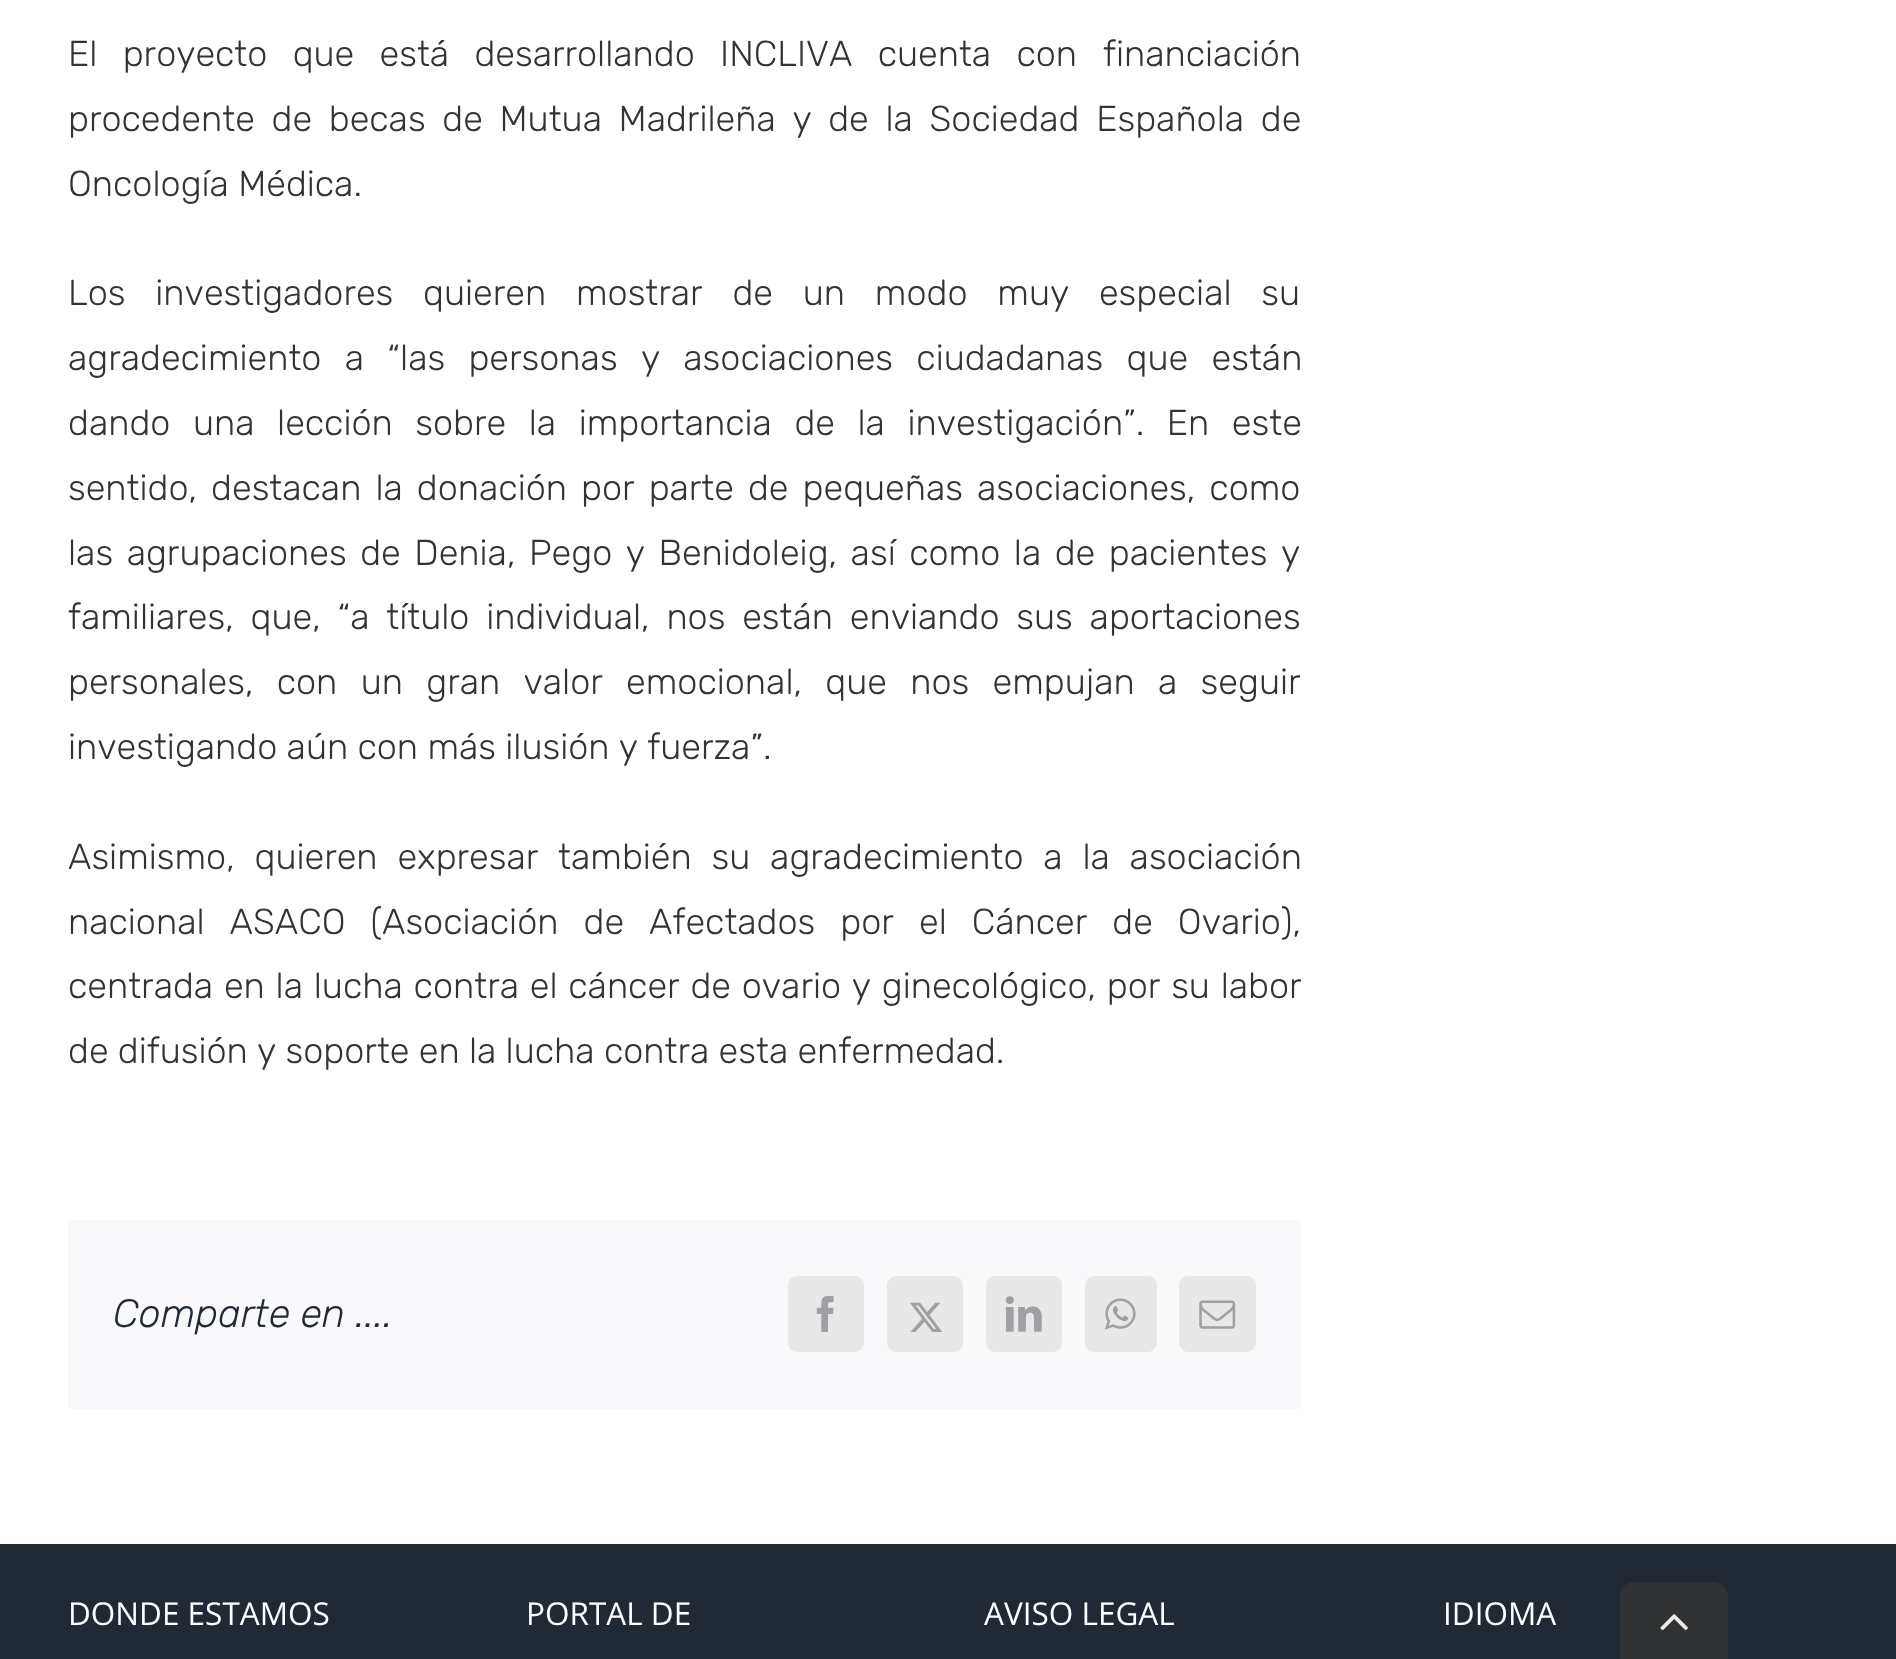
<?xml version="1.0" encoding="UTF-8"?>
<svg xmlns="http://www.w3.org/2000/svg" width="1896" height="1659">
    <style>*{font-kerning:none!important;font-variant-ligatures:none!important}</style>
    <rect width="100%" height="100%" fill="#FFFFFF"/>
    <text x="68" y="66" word-spacing="16" font-family="Rubik" font-size="36" font-weight="300" fill="#333333">El proyecto que está desarrollando INCLIVA cuenta con</text>
    <text x="1103" y="66" word-spacing="16" font-family="Rubik" font-size="36" font-weight="300" fill="#333333">financiación</text>
    <text font-family="Rubik" font-size="36" font-weight="300" fill="#333333">
        <tspan x="68" y="131" word-spacing="7.4">procedente de becas de Mutua Madrileña y de la Sociedad Española de</tspan>
        <tspan x="68" y="196">Oncología Médica.</tspan>
    </text>
    <text font-family="Rubik" font-size="36" font-weight="300" fill="#333333">
        <tspan x="68" y="305" word-spacing="20.5">Los investigadores quieren mostrar de un modo muy especial su</tspan>
        <tspan x="68" y="370" word-spacing="14">agradecimiento a “las personas y asociaciones ciudadanas que están</tspan>
        <tspan x="68" y="435" word-spacing="13.25">dando una lección sobre la importancia de la investigación”. En este</tspan>
        <tspan x="68" y="500" word-spacing="4.75">sentido, destacan la donación por parte de pequeñas asociaciones, como</tspan>
        <tspan x="68" y="565" word-spacing="4.25">las agrupaciones de Denia, Pego y Benidoleig, así como la de pacientes y</tspan>
        <tspan x="68" y="629" word-spacing="7.5">familiares, que, “a título individual, nos están enviando sus aportaciones</tspan>
        <tspan x="68" y="694" word-spacing="14">personales, con un gran valor emocional, que nos empujan a seguir</tspan>
        <tspan x="68" y="759">investigando aún con más ilusión y fuerza”.</tspan>
    </text>
    <text font-family="Rubik" font-size="36" font-weight="300" fill="#333333">
        <tspan x="68" y="869" word-spacing="10.5">Asimismo, quieren expresar también su agradecimiento a la asociación</tspan>
        <tspan x="68" y="934" word-spacing="15.75">nacional ASACO (Asociación de Afectados por</tspan>
    </text>
    <text x="919" y="934" word-spacing="15.75" font-family="Rubik" font-size="36" font-weight="300" fill="#333333">el Cáncer de Ovario),</text>
    <text font-family="Rubik" font-size="36" font-weight="300" fill="#333333">
        <tspan x="68" y="998" word-spacing="1.5">centrada en la lucha contra el cáncer de ovario y ginecológico, por su labor</tspan>
        <tspan x="68" y="1063">de difusión y soporte en la lucha contra esta enfermedad.</tspan>
    </text>
    <rect x="68" y="1220" width="1233" height="189" fill="#F9F9FB"/>
    <text x="113" y="1327" font-family="Rubik" font-size="39.5" font-weight="300" font-style="italic" fill="#212934">Comparte en ....</text>
    <rect x="789" y="1277" width="74" height="74" rx="8" fill="#E8E8E8" stroke="#E8E8E8" stroke-width="2"/>
    <image x="816" y="1296" width="18" height="36" href="img_01.png"/>
    <rect x="888" y="1277" width="74" height="74" rx="8" fill="#E8E8E8" stroke="#E8E8E8" stroke-width="2"/>
    <text x="908" y="1333" font-family="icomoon" font-size="36" fill="#9EA0A4">󩡶</text>
    <rect x="987" y="1277" width="74" height="74" rx="8" fill="#E8E8E8" stroke="#E8E8E8" stroke-width="2"/>
    <image x="1005" y="1296" width="37" height="36" href="img_02.png"/>
    <rect x="1086" y="1277" width="70" height="74" rx="8" fill="#E8E8E8" stroke="#E8E8E8" stroke-width="2"/>
    <image x="1104" y="1298" width="32" height="32" href="img_03.png"/>
    <rect x="1180" y="1277" width="75" height="74" rx="8" fill="#E8E8E8" stroke="#E8E8E8" stroke-width="2"/>
    <image x="1199" y="1300" width="37" height="29" href="img_04.png"/>
    <rect x="0" y="1544" width="1896" height="115" fill="#212934"/>
    <text x="68" y="1625" font-family="Open Sans" font-size="31.5" fill="#FFFFFF">DONDE ESTAMOS</text>
    <text x="526" y="1625" font-family="Open Sans" font-size="31.5" fill="#FFFFFF">PORTAL DE</text>
    <text x="984" y="1625" font-family="Open Sans" font-size="31.5" fill="#FFFFFF">AVISO LEGAL</text>
    <text x="1443" y="1625" font-family="Open Sans" font-size="31.5" fill="#FFFFFF">IDIOMA</text>
    <path d="M 1634 1582 H 1714 C 1721.5 1582 1728 1588.5 1728 1596 V 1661 H 1620 V 1596 C 1620 1588.5 1626.5 1582 1634 1582 Z" fill="#313233"/>
    <image x="1660" y="1614" width="28" height="17" href="img_05.png"/>
</svg>
